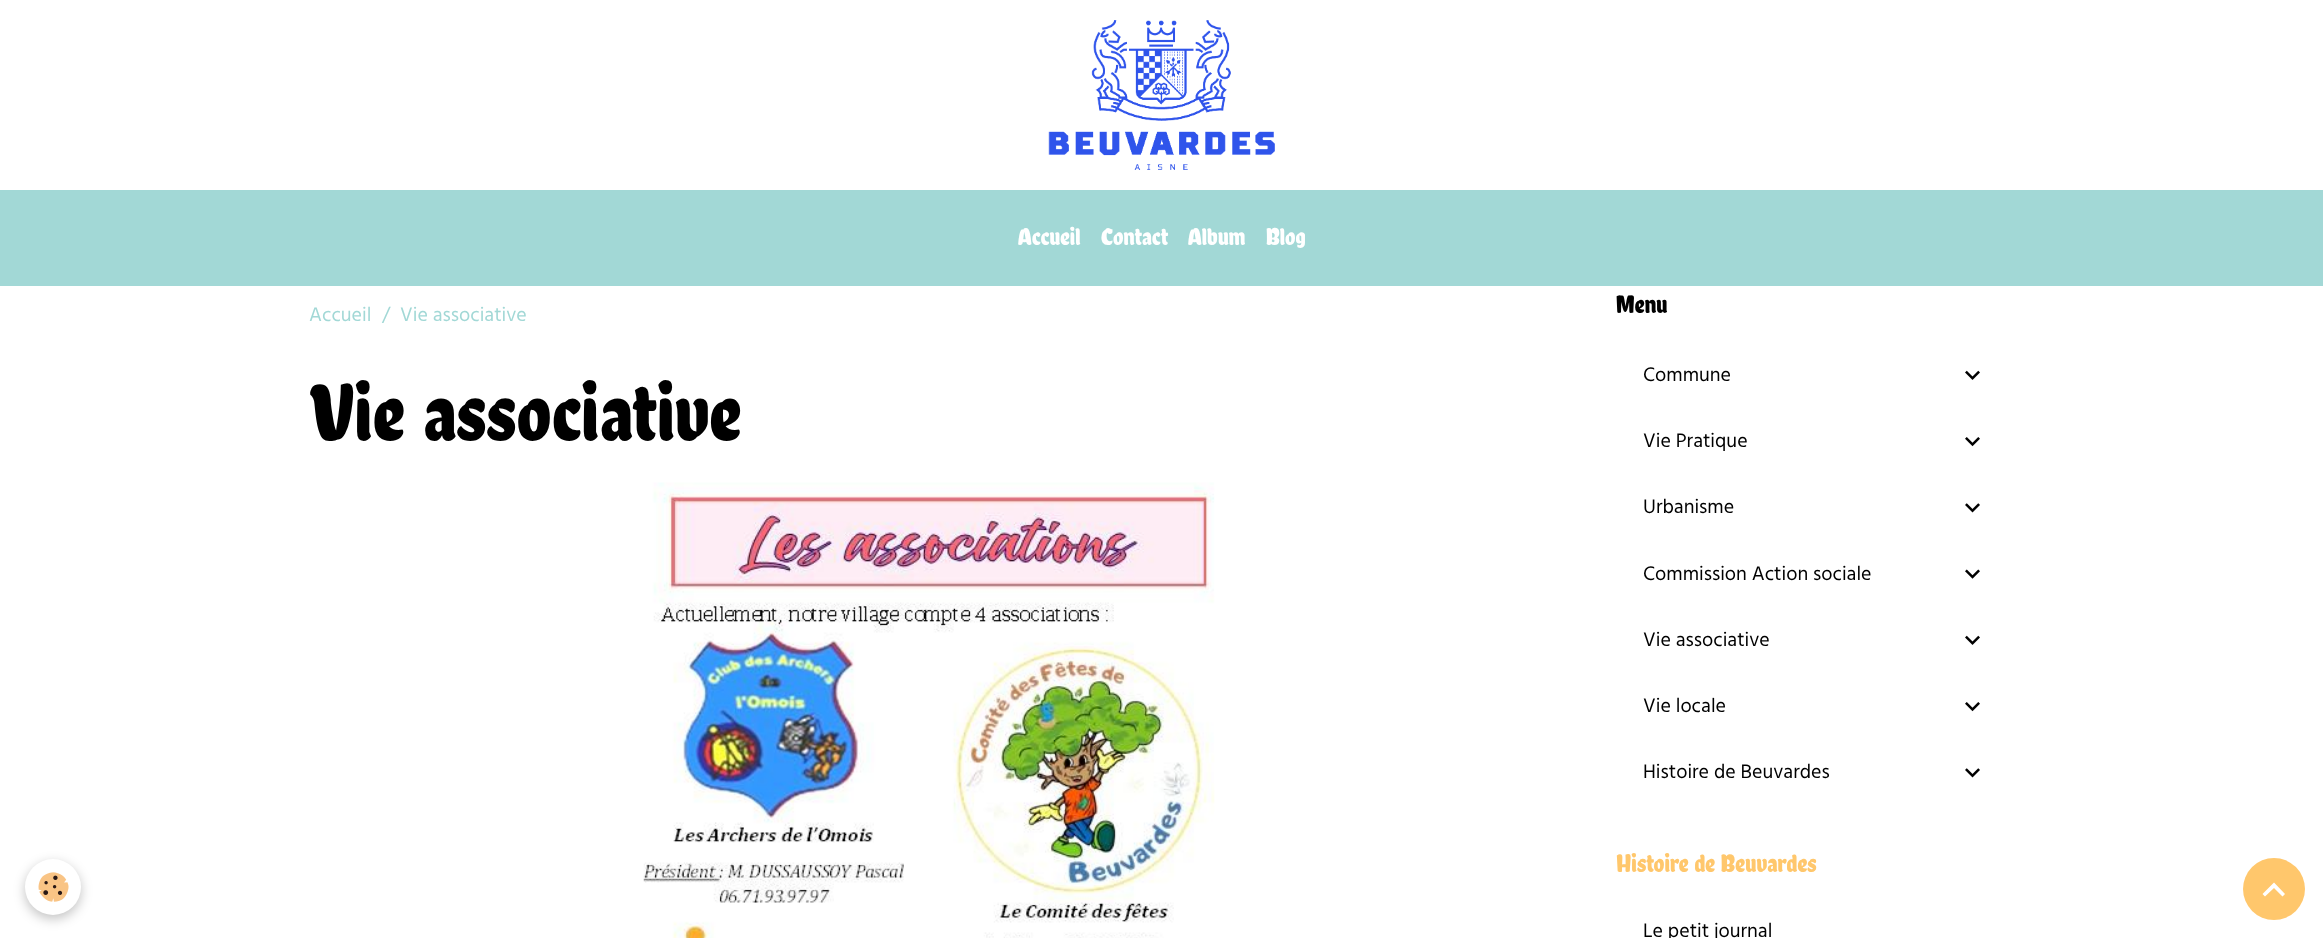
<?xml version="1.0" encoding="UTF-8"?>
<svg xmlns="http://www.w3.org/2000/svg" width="2323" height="938">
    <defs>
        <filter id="blur1" x="-50%" y="-200%" width="200%" height="500%"><feGaussianBlur stdDeviation="6"/></filter>
    </defs>
    <rect width="100%" height="100%" fill="#FFFFFF"/>
    <image x="1048" y="20" width="227" height="150" href="img_01.png"/>
    <rect x="0" y="190" width="2323" height="96" fill="#A2D8D6"/>
    <text x="1018" y="245" font-family="Chela One" font-size="24" fill="#FFFFFF">Accueil</text>
    <text x="1101" y="245" font-family="Chela One" font-size="24" fill="#FFFFFF">Contact</text>
    <text x="1188" y="245" font-family="Chela One" font-size="24" fill="#FFFFFF">Album</text>
    <text x="1266" y="245" font-family="Chela One" font-size="24" fill="#FFFFFF">Blog</text>
    <rect x="25" y="863" width="56" height="56" rx="28" fill="#000000" fill-opacity="0.24" filter="url(#blur1)"/>
    <circle cx="53" cy="887" r="28" fill="#FFFFFF"/>
    <image x="38" y="872" width="31" height="30" href="img_02.png"/>
    <text x="309" y="321" font-family="Hind" font-size="20" fill="#A2D8D6">Accueil</text>
    <text x="382" y="321" font-family="Hind" font-size="20" fill="#A2D8D6">/</text>
    <text x="400" y="321" font-family="Hind" font-size="20" fill="#A2D8D6">Vie associative</text>
    <text x="309" y="441" font-family="Chela One" font-size="80" fill="#000000">Vie associative</text>
    <image x="643" y="482" width="572" height="456" href="img_03.png"/>
    <text x="1616" y="313" font-family="Chela One" font-size="25" fill="#000000">Menu</text>
    <text x="1643" y="381" font-family="Hind" font-size="20" fill="#000000">Commune</text>
    <image x="1965" y="370" width="15" height="10" href="img_04.png"/>
    <text x="1643" y="447" font-family="Hind" font-size="20" fill="#000000">Vie Pratique</text>
    <image x="1965" y="437" width="15" height="10" href="img_05.png"/>
    <text x="1643" y="513" font-family="Hind" font-size="20" fill="#000000">Urbanisme</text>
    <image x="1965" y="503" width="15" height="10" href="img_06.png"/>
    <text x="1643" y="580" font-family="Hind" font-size="20" fill="#000000">Commission Action sociale</text>
    <image x="1965" y="569" width="15" height="10" href="img_07.png"/>
    <text x="1643" y="646" font-family="Hind" font-size="20" fill="#000000">Vie associative</text>
    <image x="1965" y="635" width="15" height="10" href="img_04.png"/>
    <text x="1643" y="712" font-family="Hind" font-size="20" fill="#000000">Vie locale</text>
    <image x="1965" y="702" width="15" height="10" href="img_05.png"/>
    <text x="1643" y="778" font-family="Hind" font-size="20" fill="#000000">Histoire de Beuvardes</text>
    <image x="1965" y="768" width="15" height="10" href="img_06.png"/>
    <text x="1616" y="872" font-family="Chela One" font-size="25" fill="#FFC76C">Histoire de Beuvardes</text>
    <text x="1643" y="937" font-family="Hind" font-size="20" fill="#000000">Le petit journal</text>
    <circle cx="2274" cy="889" r="31" fill="#FFC76C"/>
    <path d="M 2274 882.5 L 2285 894 L 2282.5 896.5 L 2274 888 L 2265 896.5 L 2262.5 894 Z" fill="#FFFFFF"/>
</svg>
